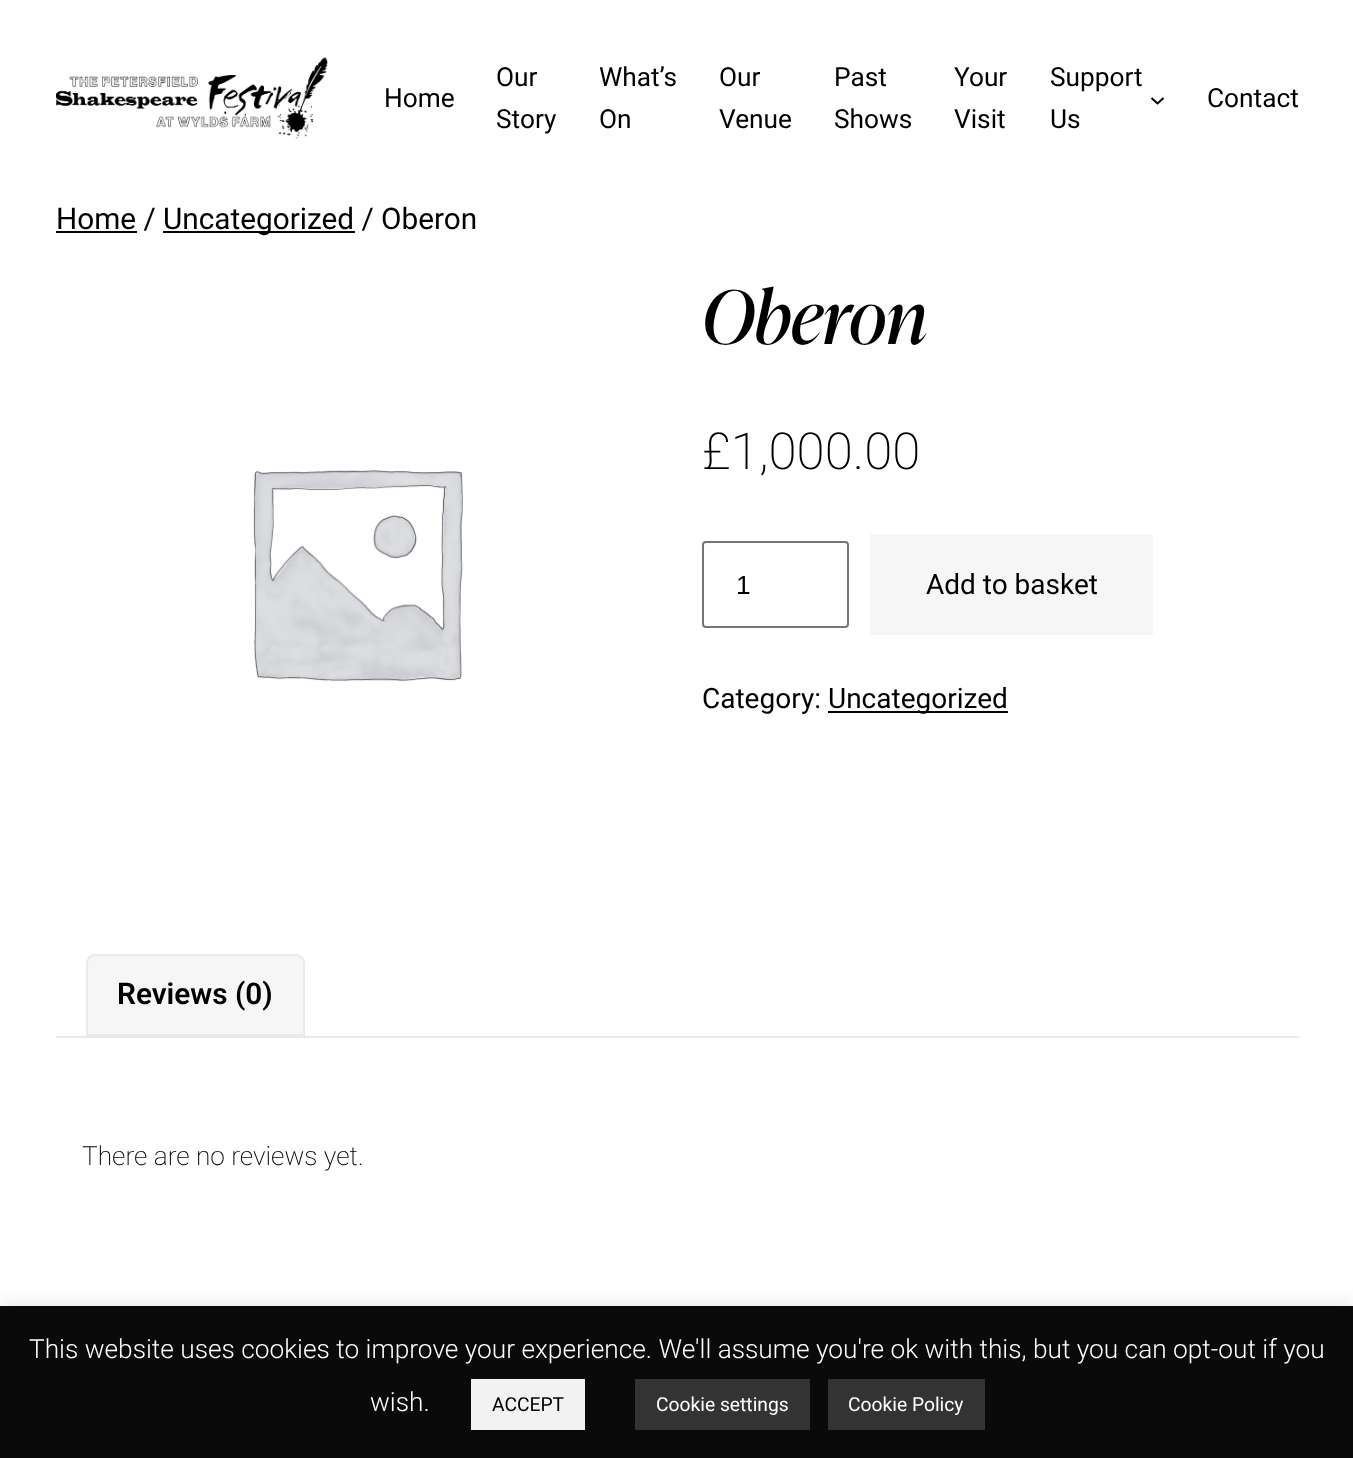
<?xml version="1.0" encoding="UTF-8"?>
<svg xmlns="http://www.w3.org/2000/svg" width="1353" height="1458">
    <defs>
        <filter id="blur1" x="-50%" y="-200%" width="200%" height="500%"><feGaussianBlur stdDeviation="9"/></filter>
    </defs>
    <rect width="100%" height="100%" fill="#FFFFFF"/>
    <image x="56" y="57" width="272" height="82" href="img_01.png"/>
    <text x="384" y="107" font-family="Roboto" font-size="26.25" fill="#000000">Home</text>
    <text font-family="Roboto" font-size="26.25" fill="#000000">
        <tspan x="496" y="86">Our</tspan>
        <tspan x="496" y="128">Story</tspan>
    </text>
    <text font-family="Roboto" font-size="26.25" fill="#000000">
        <tspan x="599" y="86">What’s</tspan>
        <tspan x="599" y="128">On</tspan>
    </text>
    <text font-family="Roboto" font-size="26.25" fill="#000000">
        <tspan x="719" y="86">Our</tspan>
        <tspan x="719" y="128">Venue</tspan>
    </text>
    <text font-family="Roboto" font-size="26.25" fill="#000000">
        <tspan x="834" y="86">Past</tspan>
        <tspan x="834" y="128">Shows</tspan>
    </text>
    <text font-family="Roboto" font-size="26.25" fill="#000000">
        <tspan x="954" y="86">Your</tspan>
        <tspan x="954" y="128">Visit</tspan>
    </text>
    <text font-family="Roboto" font-size="26.25" fill="#000000">
        <tspan x="1050" y="86">Support</tspan>
        <tspan x="1050" y="128">Us</tspan>
    </text>
    <path d="M 1151.5 98 L 1157.5 103.5 L 1163.5 98" fill="none" stroke="#000000" stroke-width="2"/>
    <text x="1207" y="107" font-family="Roboto" font-size="26.25" fill="#000000">Contact</text>
    <text x="56" y="229" font-family="Roboto" font-size="29.75" fill="#000000">Home /</text>
    <rect x="56" y="231" width="81" height="2" fill="#000000"/>
    <rect x="163" y="231" width="192" height="2" fill="#000000"/>
    <text x="163" y="229" font-family="Roboto" font-size="29.75" fill="#000000">Uncategorized / Oberon</text>
    <image x="253" y="470" width="210" height="212" href="img_02.png"/>
    <text x="702" y="344" font-family="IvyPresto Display" font-size="73.5" font-style="italic" fill="#000000">Oberon</text>
    <text x="702" y="469" font-family="Roboto" font-size="51" font-weight="200" fill="#000000">£1,000.00</text>
    <rect x="703" y="542" width="145" height="85" rx="3" fill="none" stroke="#767676" stroke-width="2"/>
    <text x="736" y="594" font-family="Liberation Sans" font-size="26.25" fill="#000000">1</text>
    <rect x="870" y="534" width="283" height="101" fill="#F6F6F6"/>
    <text x="926" y="594" font-family="Roboto" font-size="28" fill="#000000">Add to basket</text>
    <text x="702" y="708" font-family="Roboto" font-size="28" fill="#000000">Category:</text>
    <rect x="828" y="711" width="180" height="2" fill="#000000"/>
    <text x="828" y="708" font-family="Roboto" font-size="28" fill="#000000">Uncategorized</text>
    <rect x="56" y="1036" width="1243" height="2" fill="#EAE9EB"/>
    <path d="M 95 955 H 296 C 300.5 955 304 958.5 304 963 V 1035 H 87 V 963 C 87 958.5 90.5 955 95 955 Z" fill="#F6F6F6" stroke="#EAE9EB" stroke-width="2"/>
    <text x="117" y="1004" font-family="Roboto" font-size="29.75" font-weight="600" fill="#000000">Reviews (0)</text>
    <text x="82" y="1165" font-family="Roboto" font-size="26.25" font-weight="200" fill="#000000">There are no reviews yet.</text>
    <rect x="0" y="1304" width="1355" height="154" fill="#ACABAB" fill-opacity="0.3" filter="url(#blur1)"/>
    <rect x="0" y="1306" width="1353" height="152" fill="#0A0A0A"/>
    <text x="29" y="1358" font-family="Roboto" font-size="26.25" font-weight="300" fill="#FFFFFF">This website uses cookies to improve your experience. We'll assume you're ok with this, but you can opt-out if you</text>
    <text x="370" y="1411" font-family="Roboto" font-size="26.25" font-weight="300" fill="#FFFFFF">wish.</text>
    <rect x="471" y="1379" width="114" height="51" fill="#F2F2F2"/>
    <text x="492" y="1411" font-family="Roboto" font-size="19.25" fill="#000000">ACCEPT</text>
    <rect x="635" y="1379" width="175" height="51" fill="#333333"/>
    <text x="656" y="1411" font-family="Roboto" font-size="19.25" fill="#FFFFFF">Cookie settings</text>
    <rect x="828" y="1379" width="157" height="51" fill="#333333"/>
    <text x="848" y="1411" font-family="Roboto" font-size="19.25" fill="#FFFFFF">Cookie Policy</text>
</svg>
